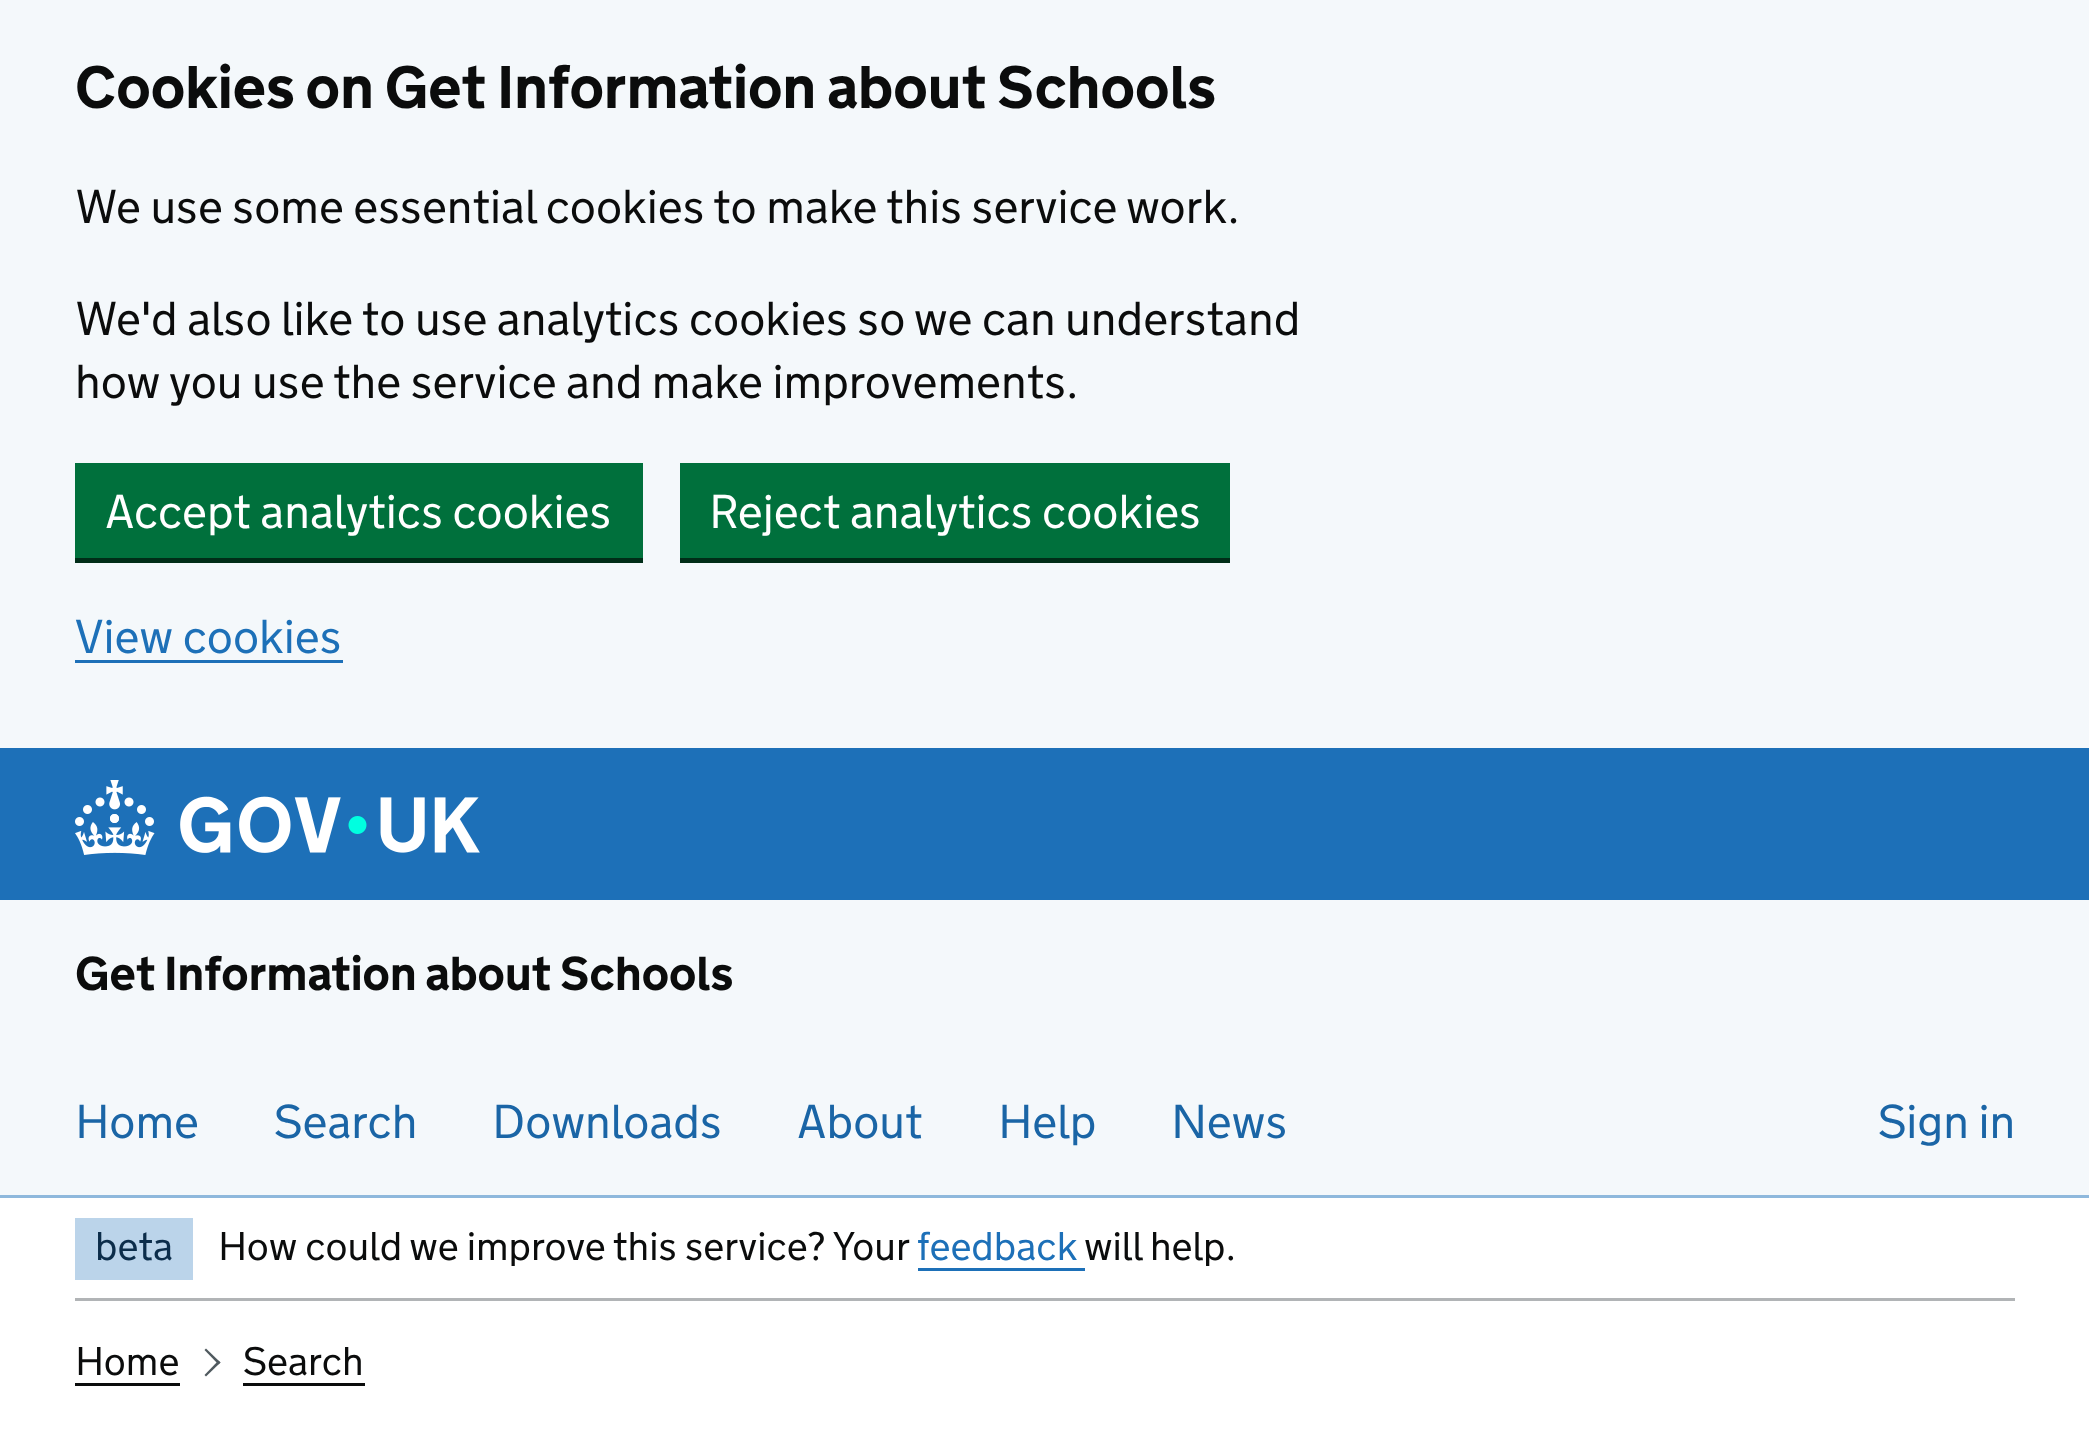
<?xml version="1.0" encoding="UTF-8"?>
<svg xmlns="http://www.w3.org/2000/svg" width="2089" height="1433">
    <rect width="100%" height="100%" fill="#FFFFFF"/>
    <rect x="0" y="0" width="2089" height="748" fill="#F4F8FB"/>
    <text x="75" y="108" font-family="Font" font-size="60" font-weight="700" fill="#0B0C0C">Cookies on Get Information about Schools</text>
    <text x="75" y="223" font-family="Font" font-size="47.5" font-weight="300" fill="#0B0C0C">We use some essential cookies to make this service work.</text>
    <text font-family="Font" font-size="47.5" font-weight="300" fill="#0B0C0C">
        <tspan x="75" y="335">We'd also like to use analytics cookies so we can understand</tspan>
        <tspan x="75" y="398">how you use the service and make improvements.</tspan>
    </text>
    <path d="M 75 558 V 563 H 643 V 468 H 642 V 558 Z" fill="#002D18"/>
    <rect x="75" y="463" width="568" height="95" fill="#00703C"/>
    <text x="105" y="528" font-family="Font" font-size="47.5" font-weight="300" fill="#FFFFFF">Accept analytics cookies</text>
    <rect x="680" y="558" width="550" height="5" fill="#002D18"/>
    <rect x="680" y="463" width="550" height="95" fill="#00703C"/>
    <text x="709" y="528" font-family="Font" font-size="47.5" font-weight="300" fill="#FFFFFF">Reject analytics cookies</text>
    <text x="75" y="653" font-family="Font" font-size="47.5" font-weight="300" fill="#1D70B8">View cookies</text>
    <rect x="75" y="660" width="268" height="3" fill="#1D70B8"/>
    <rect x="0" y="748" width="2089" height="152" fill="#1D70B8"/>
    <image x="75" y="780" width="405" height="75" href="img_01.png"/>
    <rect x="0" y="900" width="2089" height="295" fill="#F4F8FB"/>
    <rect x="0" y="1195" width="2089" height="3" fill="#8EB8DC"/>
    <text x="75" y="990" font-family="Font" font-size="47.5" font-weight="700" fill="#0B0C0C">Get Information about Schools</text>
    <text x="75" y="1138" font-family="Font" font-size="47.5" font-weight="300" fill="#1A65A6">Home</text>
    <text x="274" y="1138" font-family="Font" font-size="47.5" font-weight="300" fill="#1A65A6">Search</text>
    <text x="492" y="1138" font-family="Font" font-size="47.5" font-weight="300" fill="#1A65A6">Downloads</text>
    <text x="797" y="1138" font-family="Font" font-size="47.5" font-weight="300" fill="#1A65A6">About</text>
    <text x="998" y="1138" font-family="Font" font-size="47.5" font-weight="300" fill="#1A65A6">Help</text>
    <text x="1171" y="1138" font-family="Font" font-size="47.5" font-weight="300" fill="#1A65A6">News</text>
    <text x="1878" y="1138" font-family="Font" font-size="47.5" font-weight="300" fill="#1A65A6">Sign in</text>
    <rect x="75" y="1298" width="1940" height="3" fill="#B1B4B6"/>
    <rect x="75" y="1218" width="118" height="62" fill="#BBD4EA"/>
    <text x="95" y="1260" font-family="Font" font-size="40" font-weight="300" fill="#0C2D4A">beta</text>
    <text x="218" y="1260" font-family="Font" font-size="40" font-weight="300" fill="#0B0C0C">How could we improve this service? Your</text>
    <text x="917" y="1260" font-family="Font" font-size="40" font-weight="300" fill="#1D70B8">feedback</text>
    <rect x="918" y="1268" width="167" height="3" fill="#1D70B8"/>
    <text x="1084" y="1260" font-family="Font" font-size="40" font-weight="300" fill="#0B0C0C">will help.</text>
    <text x="75" y="1375" font-family="Font" font-size="40" font-weight="300" fill="#0B0C0C">Home</text>
    <rect x="75" y="1383" width="105" height="3" fill="#0B0C0C"/>
    <path d="M 206 1348.5 L 220.5 1362.5 L 218.5 1364.5 L 204.5 1350 Z" fill="#505A5F"/>
    <path d="M 218.5 1360.5 L 220.5 1362.5 L 206 1376.5 L 204.5 1375 Z" fill="#505A5F"/>
    <text x="243" y="1375" font-family="Font" font-size="40" font-weight="300" fill="#0B0C0C">Search</text>
    <rect x="243" y="1383" width="122" height="3" fill="#0B0C0C"/>
</svg>
